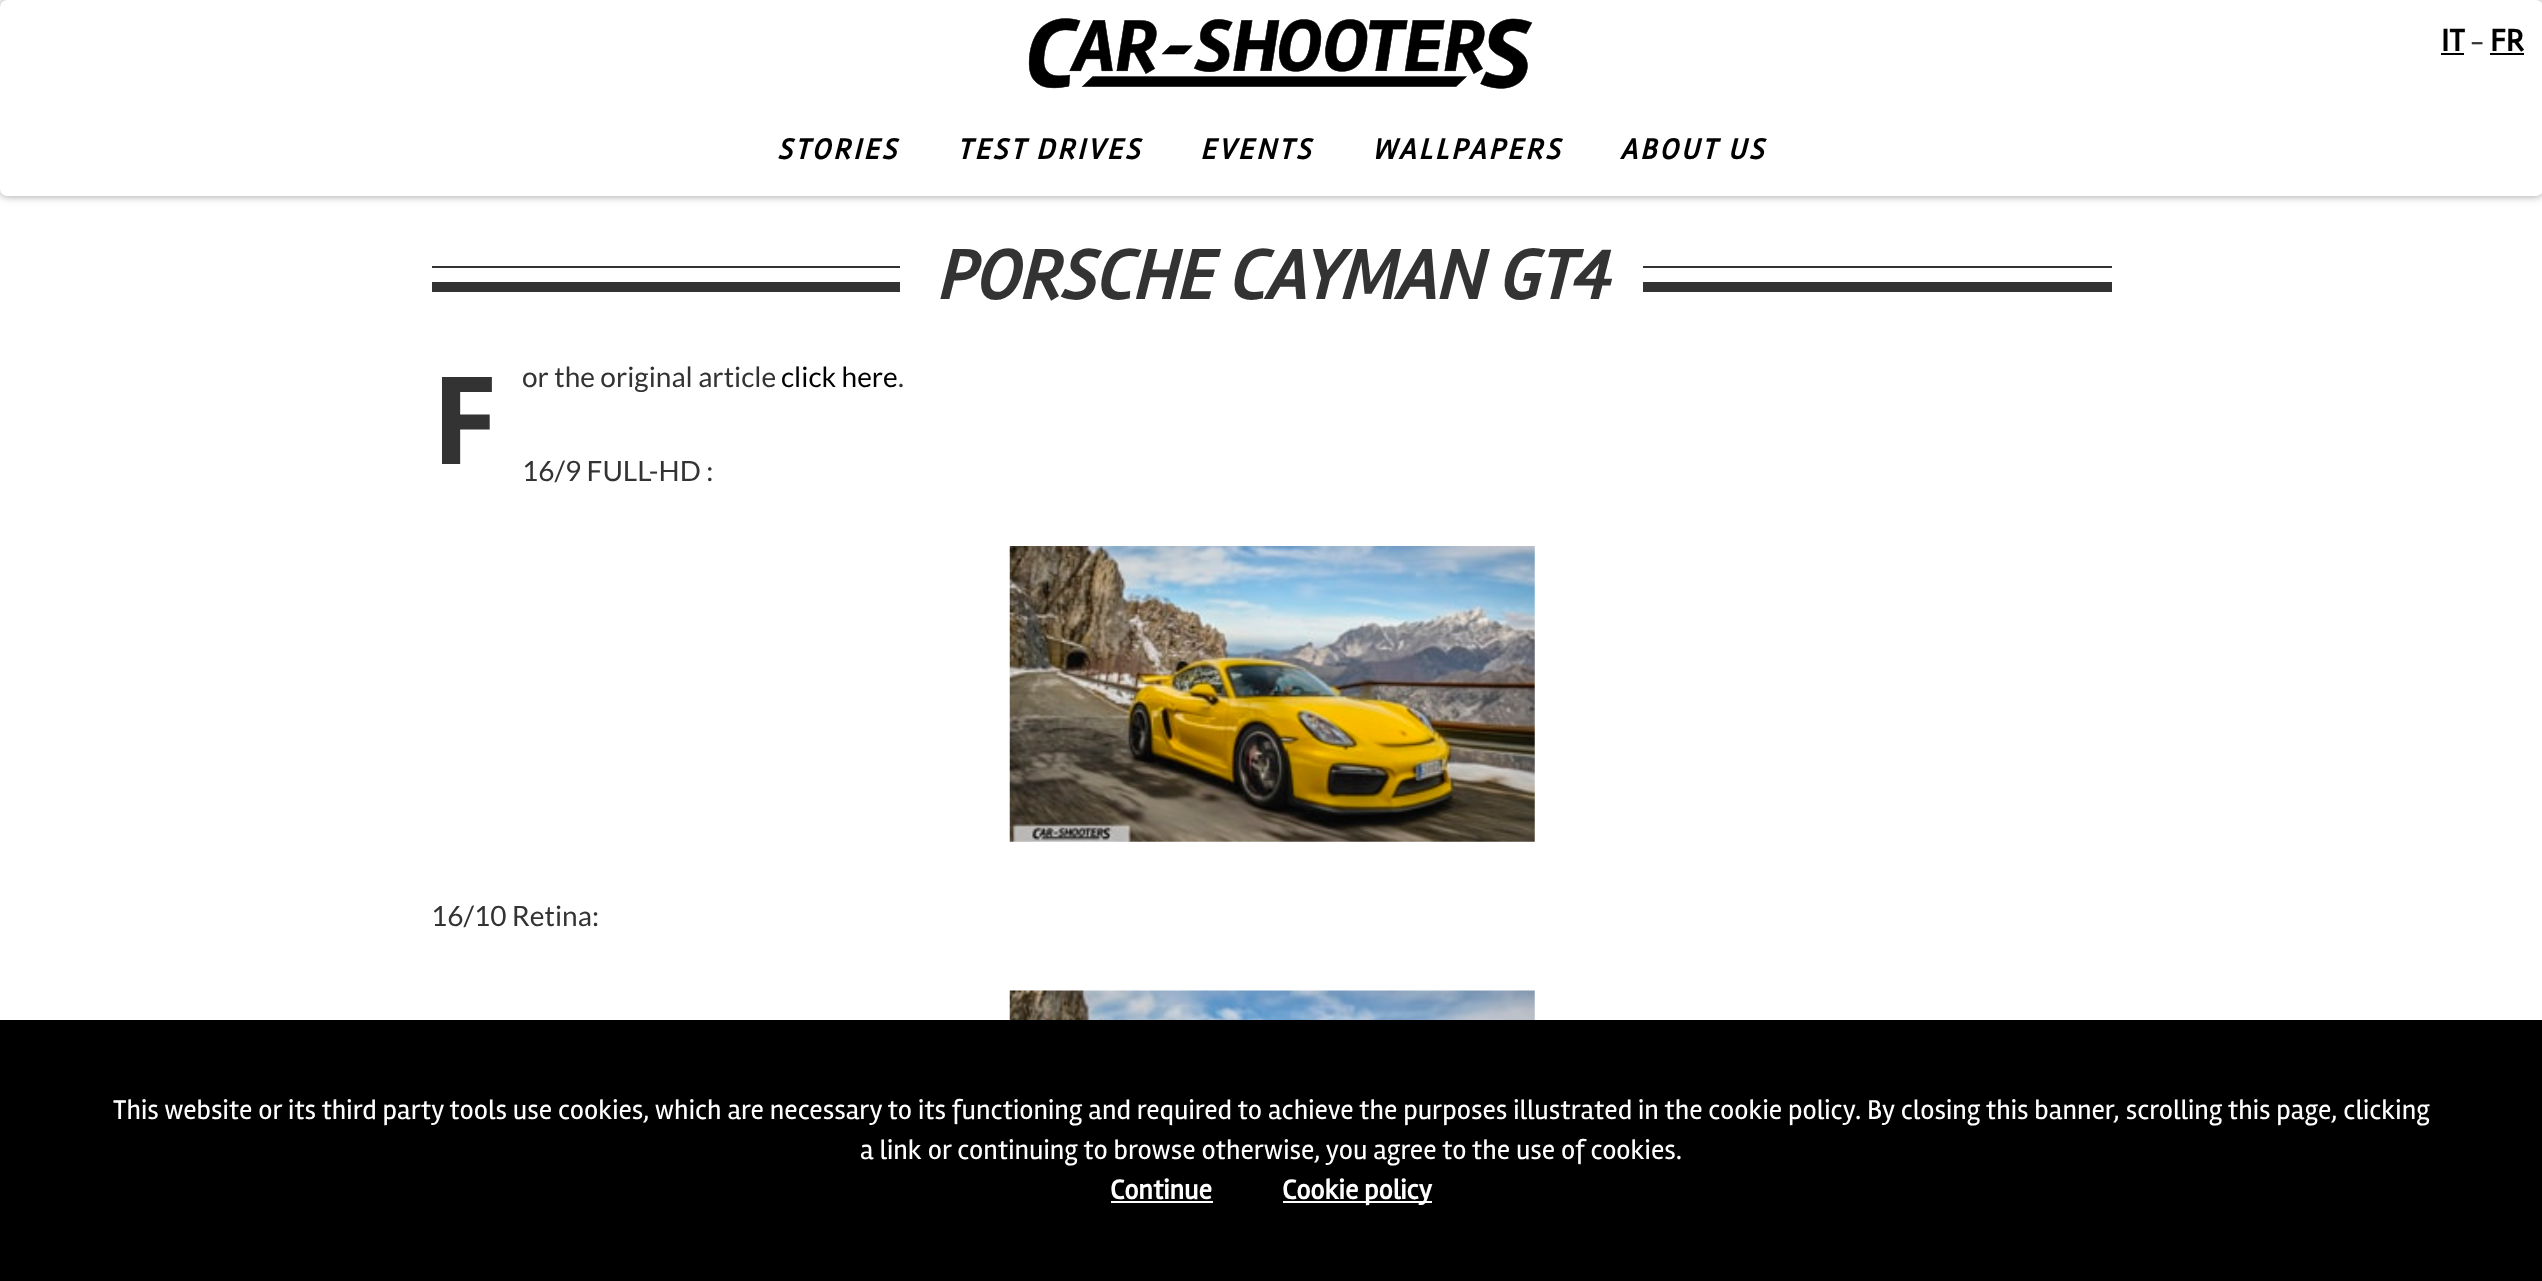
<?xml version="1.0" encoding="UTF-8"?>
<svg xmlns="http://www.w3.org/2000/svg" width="2542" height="1281">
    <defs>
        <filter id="blur1" x="-50%" y="-200%" width="200%" height="500%"><feGaussianBlur stdDeviation="4.5"/></filter>
    </defs>
    <rect width="100%" height="100%" fill="#FFFFFF"/>
    <rect x="0" y="0" width="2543" height="196" rx="7" fill="#999999" filter="url(#blur1)"/>
    <rect x="0" y="0" width="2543" height="196" rx="7" fill="#FFFFFF"/>
    <text x="2441" y="51" font-family="Rambla" font-size="32" font-weight="700" fill="#000000">IT</text>
    <rect x="2441" y="53" width="23" height="2" fill="#000000"/>
    <text x="2470" y="51" font-family="Rambla" font-size="28" fill="#333333">-</text>
    <text x="2490" y="51" font-family="Rambla" font-size="32" font-weight="700" fill="#000000">FR</text>
    <rect x="2490" y="53" width="34" height="2" fill="#000000"/>
    <image x="1028" y="18" width="505" height="71" href="img_01.png"/>
    <text x="777" y="159" font-family="Rambla" font-size="29.75" font-weight="700" font-style="italic" letter-spacing="3" fill="#000000">STORIES</text>
    <text x="957" y="159" font-family="Rambla" font-size="29.75" font-weight="700" font-style="italic" letter-spacing="3" fill="#000000">TEST DRIVES</text>
    <text x="1200" y="159" font-family="Rambla" font-size="29.75" font-weight="700" font-style="italic" letter-spacing="3" fill="#000000">EVENTS</text>
    <text x="1372" y="159" font-family="Rambla" font-size="29.75" font-weight="700" font-style="italic" letter-spacing="3" fill="#000000">WALLPAPERS</text>
    <text x="1620" y="159" font-family="Rambla" font-size="29.75" font-weight="700" font-style="italic" letter-spacing="3" fill="#000000">ABOUT US</text>
    <rect x="432" y="266" width="1680" height="2" fill="#333333"/>
    <rect x="432" y="282" width="1680" height="10" fill="#333333"/>
    <rect x="900" y="266" width="743" height="26" fill="#FFFFFF"/>
    <text x="935" y="299" font-family="Rambla" font-size="71.75" font-weight="700" font-style="italic" fill="#333333">PORSCHE CAYMAN GT4</text>
    <text x="431" y="464" font-family="Noto Sans" font-size="122" font-weight="700" fill="#333333">F</text>
    <text x="522" y="387" font-family="Lato" font-size="28" fill="#333333">or the original article</text>
    <text x="781" y="387" font-family="Lato" font-size="28" fill="#000000">click here</text>
    <text x="898" y="387" font-family="Lato" font-size="28" fill="#333333">.</text>
    <text x="522" y="481" font-family="Lato" font-size="28" fill="#333333">16/9 FULL-HD :</text>
    <image x="1009" y="546" width="526" height="296" href="img_02.png"/>
    <text x="431" y="926" font-family="Lato" font-size="28" fill="#333333">16/10 Retina:</text>
    <image x="1009" y="990" width="526" height="30" href="img_03.png"/>
    <rect x="0" y="1020" width="2542" height="261" fill="#000000"/>
    <text x="113" y="1119" font-family="Rambla" font-size="28" fill="#FFFFFF">This website or its third party tools use cookies, which are necessary to its functioning and required to achieve the purposes illustrated in the cookie policy. By closing this banner, scrolling this page, clicking</text>
    <text x="860" y="1159" font-family="Rambla" font-size="28" fill="#FFFFFF">a link or continuing to browse otherwise, you agree to the use of cookies.</text>
    <text x="1110" y="1199" font-family="Rambla" font-size="28" font-weight="700" fill="#FFFFFF">Continue</text>
    <rect x="1111" y="1201" width="102" height="2" fill="#FFFFFF"/>
    <rect x="1283" y="1201" width="149" height="2" fill="#FFFFFF"/>
    <text x="1282" y="1199" font-family="Rambla" font-size="28" font-weight="700" fill="#FFFFFF">Cookie policy</text>
</svg>
